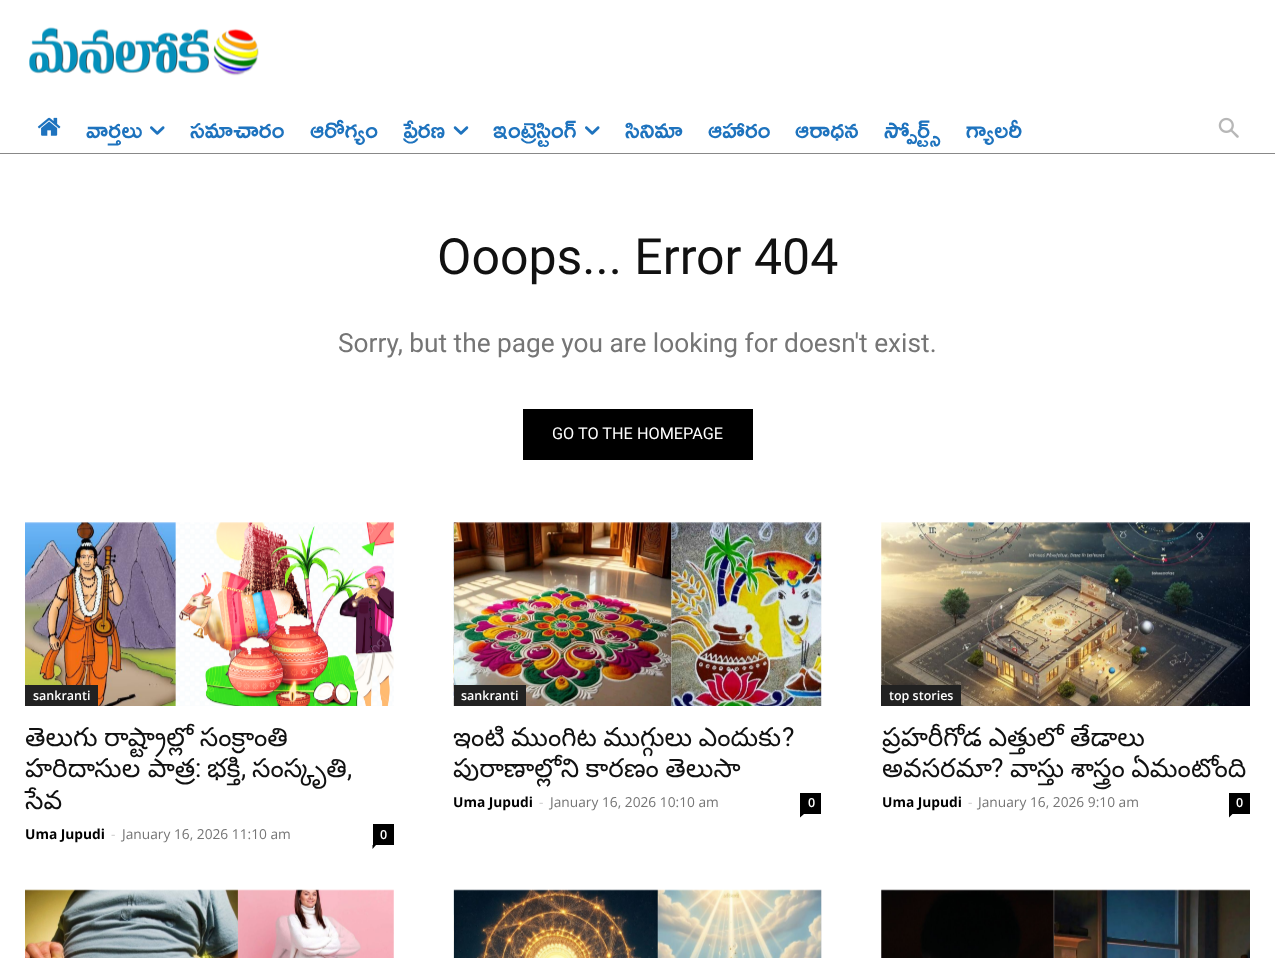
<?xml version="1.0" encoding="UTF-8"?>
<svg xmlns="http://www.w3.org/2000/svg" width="1275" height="958">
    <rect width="100%" height="100%" fill="#FFFFFF"/>
    <image x="29" y="27" width="230" height="49" href="img_01.png"/>
    <rect x="0" y="153" width="1275" height="1" fill="#888888"/>
    <image x="37" y="117" width="24" height="19" href="img_02.png"/>
    <text x="86" y="138" font-family="Ramabhadra" font-size="25" fill="#1E73BE">వార్తలు</text>
    <image x="150" y="126" width="15" height="9" href="img_03.png"/>
    <text x="190" y="138" font-family="Ramabhadra" font-size="25" fill="#1E73BE">సమాచారం</text>
    <text x="310" y="138" font-family="Ramabhadra" font-size="25" fill="#1E73BE">ఆరోగ్యం</text>
    <text x="403" y="138" font-family="Ramabhadra" font-size="25" fill="#1E73BE">ప్రేర‌ణ‌</text>
    <image x="453" y="126" width="16" height="9" href="img_04.png"/>
    <text x="493" y="138" font-family="Ramabhadra" font-size="25" fill="#1E73BE">ఇంట్రెస్టింగ్‌</text>
    <image x="585" y="126" width="15" height="9" href="img_03.png"/>
    <text x="625" y="138" font-family="Ramabhadra" font-size="25" fill="#1E73BE">సినిమా</text>
    <text x="708" y="138" font-family="Ramabhadra" font-size="25" fill="#1E73BE">ఆహారం</text>
    <text x="795" y="138" font-family="Ramabhadra" font-size="25" fill="#1E73BE">ఆరాధన</text>
    <text x="884" y="138" font-family="Ramabhadra" font-size="25" fill="#1E73BE">స్పోర్ట్స్‌</text>
    <text x="966" y="138" font-family="Ramabhadra" font-size="25" fill="#1E73BE">గ్యాలరీ</text>
    <image x="1218" y="117" width="21" height="21" href="img_05.png"/>
    <text x="437" y="274" font-family="Roboto" font-size="50" fill="#111111">Ooops... Error 404</text>
    <text x="338" y="352" font-family="Roboto" font-size="26.25" fill="#757575">Sorry, but the page you are looking for doesn't exist.</text>
    <rect x="523" y="409" width="230" height="51" fill="#000000"/>
    <text x="552" y="439" font-family="Roboto" font-size="16.25" fill="#FFFFFF">GO TO THE HOMEPAGE</text>
    <image x="25" y="522" width="369" height="184" href="img_06.png"/>
    <rect x="25" y="685" width="73" height="21" fill="#222222"/>
    <text x="33" y="700" font-family="Open Sans" font-size="12.5" font-weight="600" fill="#FFFFFF">sankranti</text>
    <text font-family="Noto Sans Telugu" font-size="26.25" fill="#111111">
        <tspan x="25" y="746" word-spacing="-1">తెలుగు రాష్ట్రాల్లో సంక్రాంతి</tspan>
        <tspan x="25" y="777">హరిదాసుల పాత్ర</tspan>
    </text>
    <text x="195" y="777" font-family="Roboto" font-size="26.25" fill="#111111">:</text>
    <text x="207" y="777" font-family="Noto Sans Telugu" font-size="26.25" fill="#111111">భక్తి</text>
    <text x="241" y="777" font-family="Roboto" font-size="26.25" fill="#111111">,</text>
    <text x="252" y="777" font-family="Noto Sans Telugu" font-size="26.25" fill="#111111">సంస్కృతి</text>
    <text x="347" y="777" font-family="Roboto" font-size="26.25" fill="#111111">,</text>
    <text x="25" y="809" font-family="Noto Sans Telugu" font-size="26.25" fill="#111111">సేవ</text>
    <text x="25" y="839" font-family="Open Sans" font-size="13.75" font-weight="700" fill="#000000">Uma Jupudi</text>
    <text x="111" y="839" font-family="Open Sans" font-size="13.75" fill="#CCCCCC">-</text>
    <text x="122" y="839" font-family="Open Sans" font-size="13.75" fill="#757575">January 16, 2026 11:10 am</text>
    <rect x="373" y="824" width="21" height="21" fill="#000000"/>
    <text x="380" y="839" font-family="Open Sans" font-size="12.5" font-weight="600" fill="#FFFFFF">0</text>
    <path d="M 372.5 845 H 376 L 372.5 849 Z" fill="#000000"/>
    <image x="453" y="522" width="369" height="184" href="img_07.png"/>
    <rect x="454" y="685" width="72" height="21" fill="#222222"/>
    <text x="461" y="700" font-family="Open Sans" font-size="12.5" font-weight="600" fill="#FFFFFF">sankranti</text>
    <text x="453" y="746" word-spacing="-1" font-family="Noto Sans Telugu" font-size="26.25" fill="#111111">ఇంటి ముంగిట ముగ్గులు ఎందుకు</text>
    <text x="782" y="746" font-family="Roboto" font-size="26.25" fill="#111111">?</text>
    <text x="453" y="777" word-spacing="-1" font-family="Noto Sans Telugu" font-size="26.25" fill="#111111">పురాణాల్లోని కారణం తెలుసా</text>
    <text x="453" y="807" font-family="Open Sans" font-size="13.75" font-weight="700" fill="#000000">Uma Jupudi</text>
    <text x="539" y="807" font-family="Open Sans" font-size="13.75" fill="#CCCCCC">-</text>
    <text x="550" y="807" font-family="Open Sans" font-size="13.75" fill="#757575">January 16, 2026 10:10 am</text>
    <rect x="800" y="793" width="21" height="21" fill="#000000"/>
    <text x="808" y="807" font-family="Open Sans" font-size="12.5" font-weight="600" fill="#FFFFFF">0</text>
    <path d="M 800 814 H 804 L 800 817.5 Z" fill="#000000"/>
    <image x="881" y="522" width="369" height="184" href="img_08.png"/>
    <rect x="881" y="685" width="80" height="21" fill="#222222"/>
    <text x="889" y="700" font-family="Open Sans" font-size="12.5" font-weight="600" fill="#FFFFFF">top stories</text>
    <text font-family="Noto Sans Telugu" font-size="26.25" fill="#111111">
        <tspan x="882" y="746" word-spacing="-1">ప్రహరీగోడ ఎత్తులో తేడాలు</tspan>
        <tspan x="882" y="777">అవసరమా</tspan>
    </text>
    <text x="991" y="777" font-family="Roboto" font-size="26.25" fill="#111111">?</text>
    <text x="1010" y="777" word-spacing="-1" font-family="Noto Sans Telugu" font-size="26.25" fill="#111111">వాస్తు శాస్త్రం ఏమంటోంది</text>
    <text x="882" y="807" font-family="Open Sans" font-size="13.75" font-weight="700" fill="#000000">Uma Jupudi</text>
    <text x="968" y="807" font-family="Open Sans" font-size="13.75" fill="#CCCCCC">-</text>
    <text x="978" y="807" font-family="Open Sans" font-size="13.75" fill="#757575">January 16, 2026 9:10 am</text>
    <rect x="1229" y="793" width="21" height="21" fill="#000000"/>
    <text x="1236" y="807" font-family="Open Sans" font-size="12.5" font-weight="600" fill="#FFFFFF">0</text>
    <path d="M 1229 814 H 1232.5 L 1229 817.5 Z" fill="#000000"/>
    <image x="25" y="889" width="369" height="69" href="img_09.png"/>
    <image x="453" y="889" width="369" height="69" href="img_10.png"/>
    <image x="881" y="889" width="369" height="69" href="img_11.png"/>
</svg>
